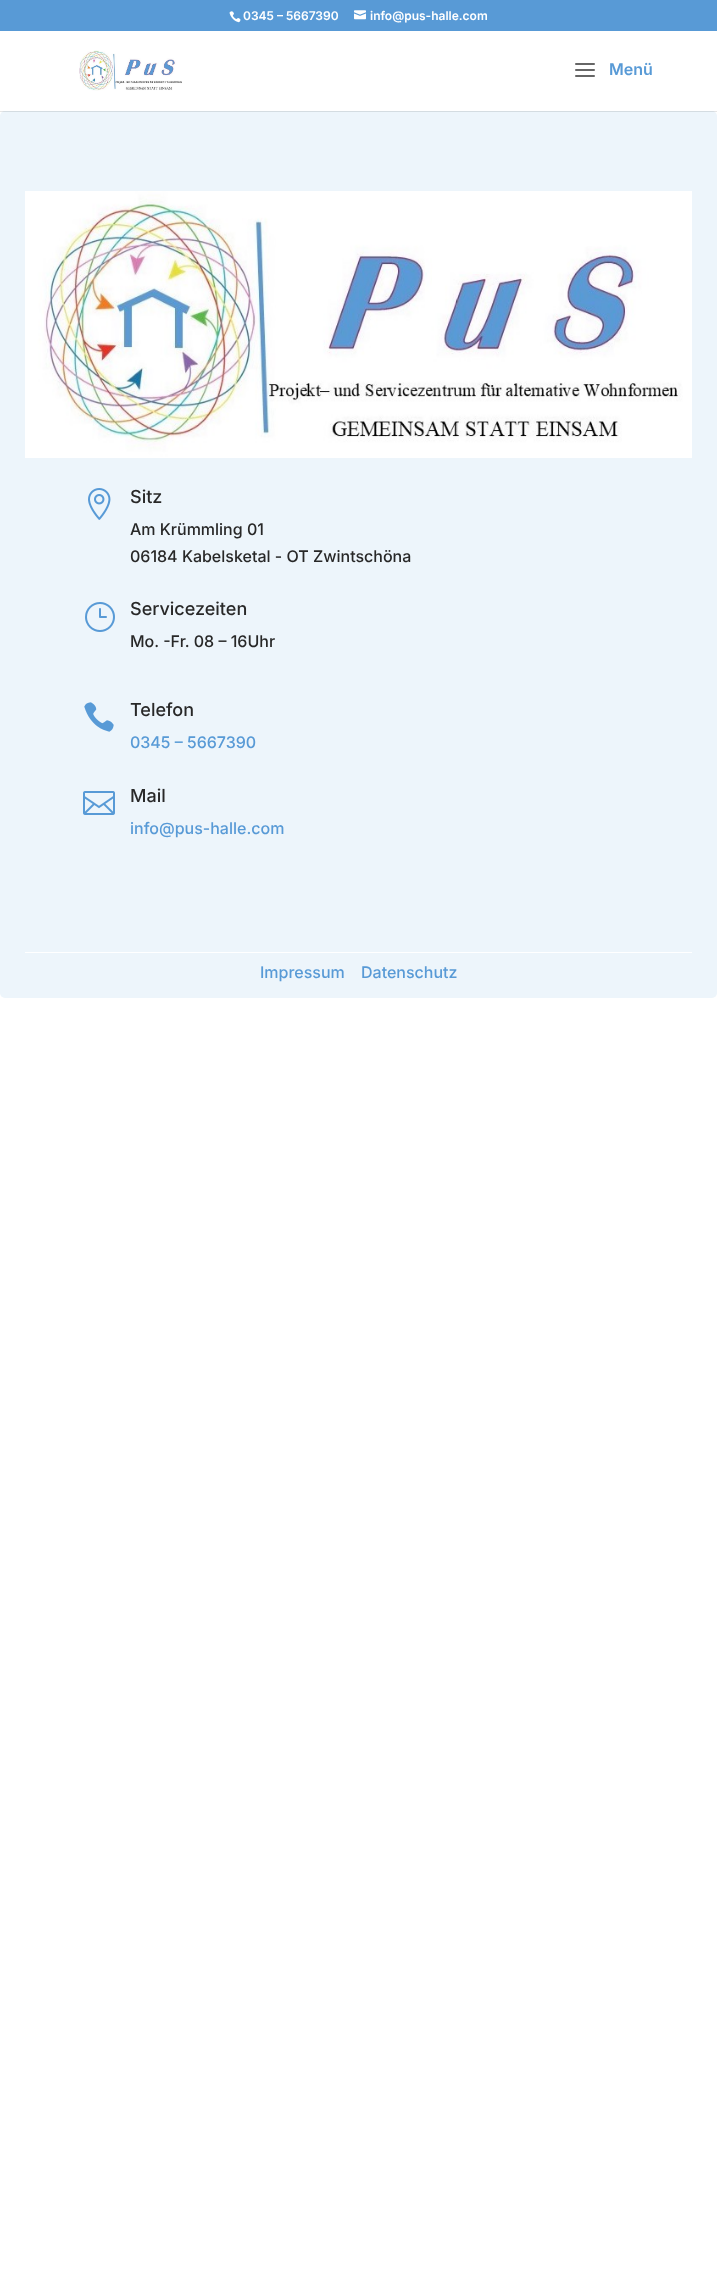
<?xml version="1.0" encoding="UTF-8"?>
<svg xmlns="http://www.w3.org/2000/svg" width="717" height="2286">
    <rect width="100%" height="100%" fill="#FFFFFF"/>
    <rect x="0" y="0" width="717" height="31" fill="#589AD6"/>
    <image x="229" y="11" width="12" height="12" href="img_01.png"/>
    <text x="243" y="20" font-family="Inter" font-size="12" font-weight="600" fill="#FFFFFF">0345 – 5667390</text>
    <image x="354" y="10" width="12" height="10" href="img_02.png"/>
    <text x="370" y="20" font-family="Inter" font-size="12" font-weight="600" fill="#FFFFFF">info@pus-halle.com</text>
    <rect x="0" y="111" width="717" height="887" rx="5" fill="#EDF5FB"/>
    <rect x="0" y="111" width="717" height="1" fill="#000000" fill-opacity="0.1"/>
    <image x="79" y="50" width="103" height="41" href="img_03.png"/>
    <image x="575" y="63" width="20" height="14" href="img_04.png"/>
    <text x="609" y="75" font-family="Inter" font-size="16" font-weight="600" fill="#589AD6">Menü</text>
    <image x="25" y="191" width="667" height="267" href="img_05.png"/>
    <image x="88" y="488" width="23" height="32" href="img_06.png"/>
    <text x="130" y="503" font-family="Inter" font-size="18" font-weight="500" fill="#282828">Sitz</text>
    <text font-family="Inter" font-size="16" font-weight="500" fill="#282828">
        <tspan x="130" y="535">Am Krümmling 01</tspan>
        <tspan x="130" y="562">06184 Kabelsketal - OT Zwintschöna</tspan>
    </text>
    <image x="85" y="602" width="30" height="30" href="img_07.png"/>
    <text x="130" y="615" font-family="Inter" font-size="18" font-weight="500" fill="#282828">Servicezeiten</text>
    <text x="130" y="647" font-family="Inter" font-size="16" font-weight="500" fill="#282828">Mo. -Fr. 08 – 16Uhr</text>
    <image x="84" y="702" width="30" height="30" href="img_08.png"/>
    <text x="130" y="716" font-family="Inter" font-size="18" font-weight="500" fill="#282828">Telefon</text>
    <text x="130" y="748" font-family="Inter" font-size="16" font-weight="500" fill="#589AD6">0345 – 5667390</text>
    <image x="83" y="791" width="32" height="24" href="img_09.png"/>
    <text x="130" y="802" font-family="Inter" font-size="18" font-weight="500" fill="#282828">Mail</text>
    <text x="130" y="834" font-family="Inter" font-size="16" font-weight="500" fill="#589AD6">info@pus-halle.com</text>
    <rect x="25" y="952" width="667" height="1" fill="#FFFFFF"/>
    <text x="260" y="978" font-family="Inter" font-size="16" font-weight="500" fill="#589AD6">Impressum</text>
    <text x="361" y="978" font-family="Inter" font-size="16" font-weight="500" fill="#589AD6">Datenschutz</text>
</svg>
